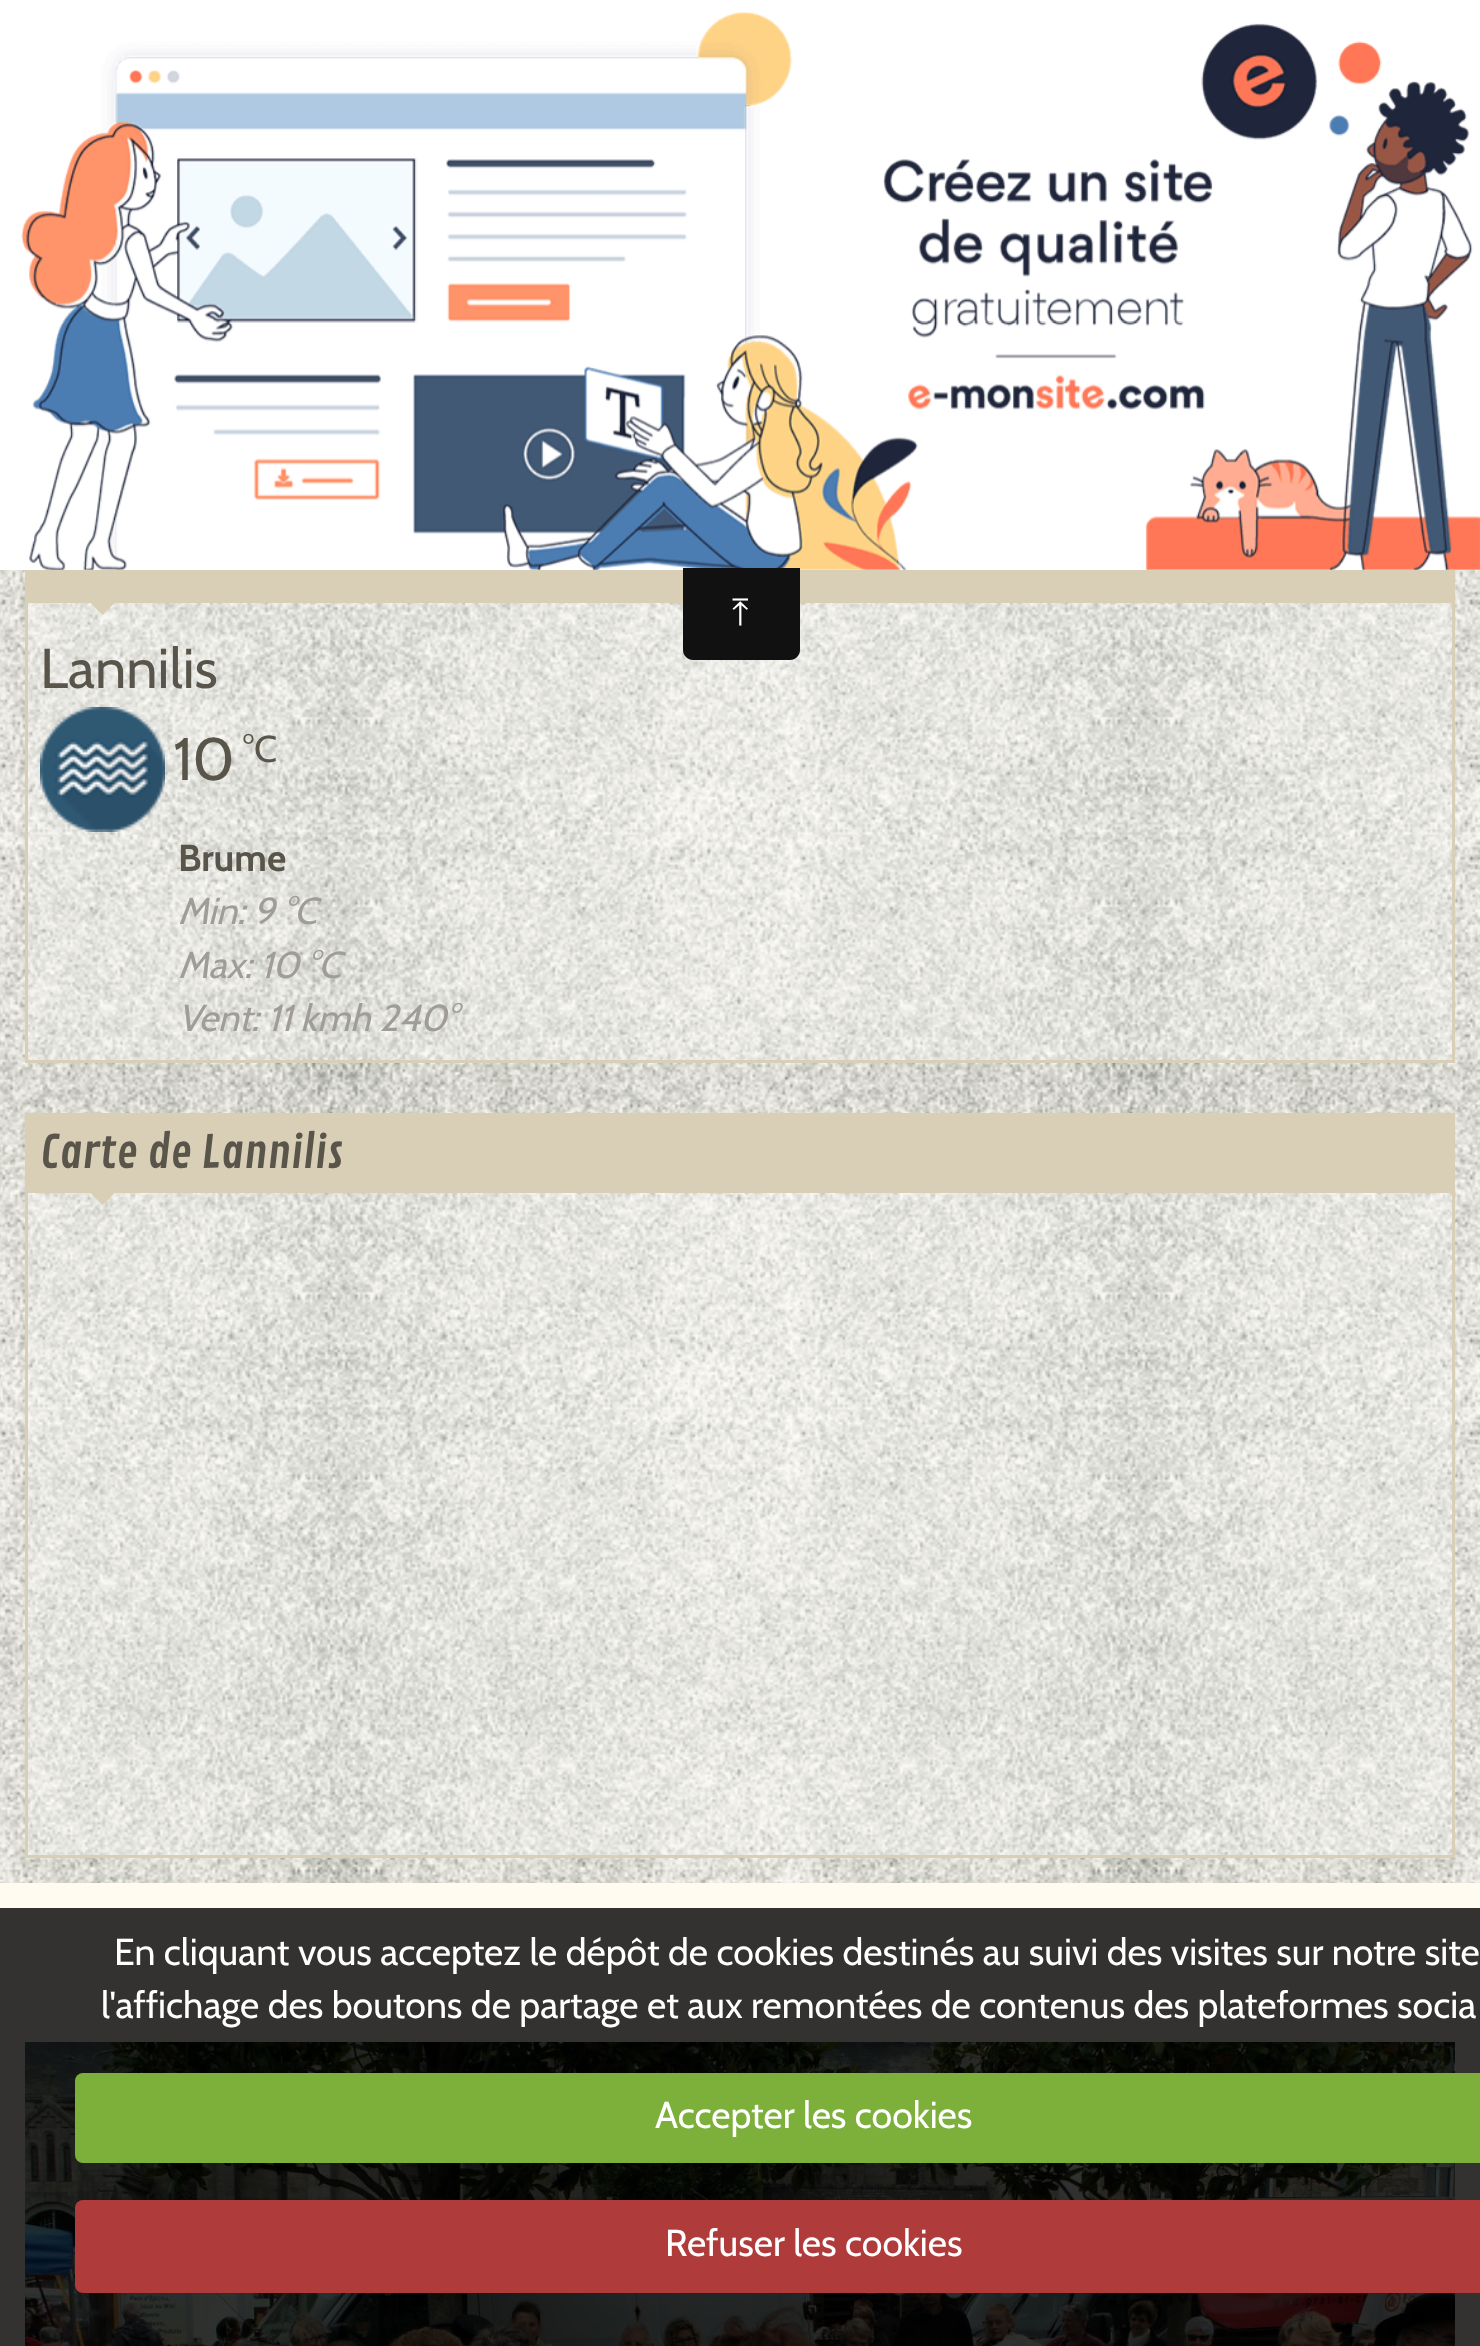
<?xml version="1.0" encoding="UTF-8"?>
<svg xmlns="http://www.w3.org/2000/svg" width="1480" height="2346">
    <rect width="100%" height="100%" fill="#FFFBF1"/>
    <image x="0" y="570" width="1480" height="1313" href="img_01.png"/>
    <rect x="0" y="570" width="1480" height="1313" fill="#FFFFFF" fill-opacity="0.3"/>
    <rect x="28" y="603" width="1424" height="457" fill="#FFFFFF" fill-opacity="0.3"/>
    <rect x="26.5" y="526.5" width="1427" height="535" fill="none" stroke="#D9CFB7" stroke-width="3"/>
    <rect x="0" y="0" width="1480" height="570" fill="#FFFFFF"/>
    <image x="21" y="12" width="1459" height="558" href="img_02.png"/>
    <rect x="28" y="570" width="1424" height="33" fill="#D9CFB7"/>
    <path d="M 683 568 H 800 V 650 C 800 655.5 795.5 660 790 660 H 693 C 687.5 660 683 655.5 683 650 Z" fill="#111111"/>
    <text x="732" y="625" font-family="FreeSerif" font-size="37.5" fill="#FFFFFF">⤒</text>
    <path d="M 90 602.5 H 115 L 102.5 615 Z" fill="#D9CFB7"/>
    <text x="40" y="688" font-family="Cabin" font-size="56" fill="#59554B">Lannilis</text>
    <image x="40" y="707" width="125" height="125" href="img_03.png"/>
    <text x="173" y="780" font-family="Cabin" font-size="60" fill="#59554B">10</text>
    <text x="243" y="762" font-family="Cabin" font-size="37.5" fill="#59554B">°C</text>
    <text x="178" y="871" font-family="Cabin" font-size="37.5" font-weight="700" fill="#59554B">Brume</text>
    <text font-family="Cabin" font-size="37.5" font-style="italic" fill="#9F9D96">
        <tspan x="178" y="924">Min: 9 °C</tspan>
        <tspan x="178" y="978">Max: 10 °C</tspan>
        <tspan x="178" y="1031">Vent: 11 kmh 240°</tspan>
    </text>
    <rect x="28" y="1193" width="1424" height="662" fill="#FFFFFF" fill-opacity="0.3"/>
    <rect x="26.5" y="1114.5" width="1427" height="742" fill="none" stroke="#D9CFB7" stroke-width="3"/>
    <rect x="28" y="1116" width="1424" height="77" fill="#D9CFB7"/>
    <text x="40" y="1168" font-family="Contrail One" font-size="45" fill="#59554B">Carte de Lannilis</text>
    <path d="M 90 1192.5 H 115 L 102.5 1205 Z" fill="#D9CFB7"/>
    <image x="25" y="2042" width="1430" height="304" href="img_04.png"/>
    <rect x="0" y="1908" width="1480" height="438" fill="#000000" fill-opacity="0.8"/>
    <text x="114" y="1965" font-family="Cabin" font-size="37.5" fill="#FFFFFF">En cliquant vous acceptez le dépôt de cookies destinés au suivi des visites sur notre site</text>
    <text x="101" y="2018" font-family="Cabin" font-size="37.5" fill="#FFFFFF">l'affichage des boutons de partage et aux remontées de contenus des plateformes socia</text>
    <rect x="75" y="2073" width="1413" height="90" rx="8" fill="#7DAF3B"/>
    <text x="655" y="2128" font-family="Cabin" font-size="37.5" fill="#FFFFFF">Accepter les cookies</text>
    <rect x="75" y="2200" width="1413" height="93" rx="8" fill="#AF3B3B"/>
    <text x="665" y="2256" font-family="Cabin" font-size="37.5" fill="#FFFFFF">Refuser les cookies</text>
</svg>
